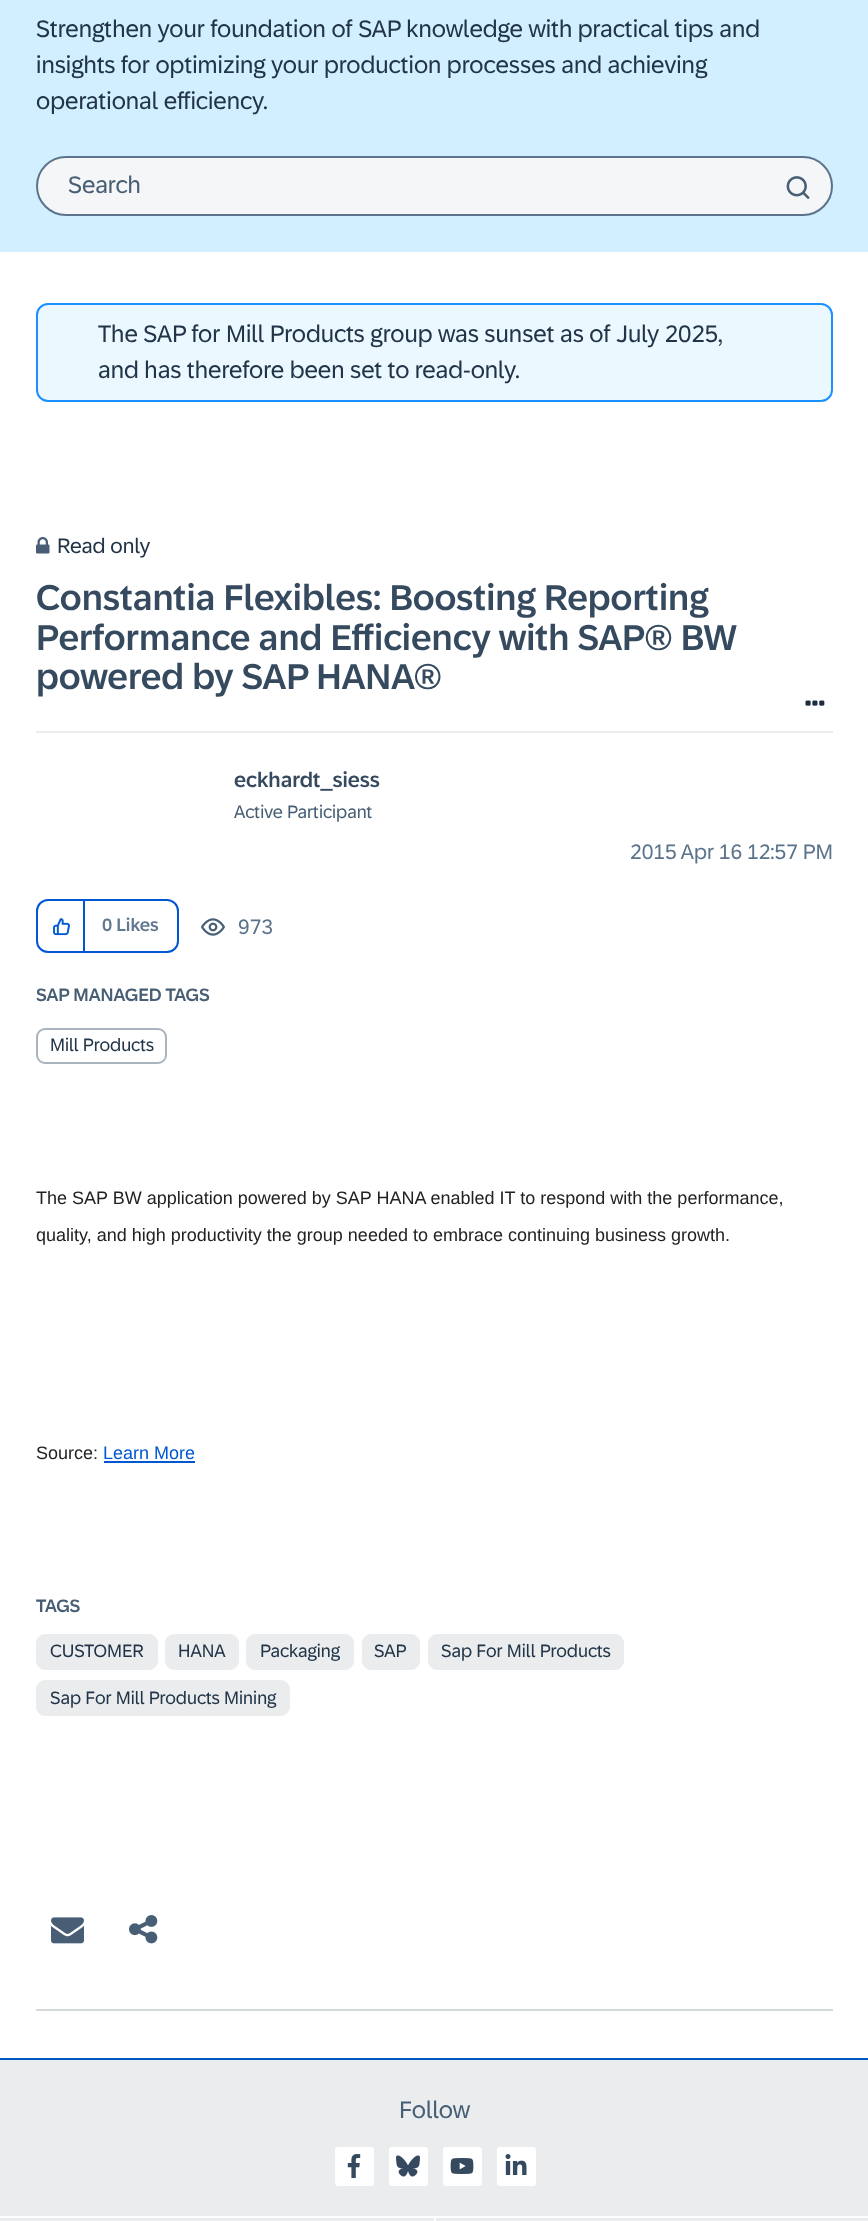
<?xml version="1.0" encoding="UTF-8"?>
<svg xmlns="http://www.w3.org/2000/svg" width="868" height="2221">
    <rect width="100%" height="100%" fill="#FFFFFF"/>
    <rect x="0" y="0" width="868" height="252" fill="#D1EFFF"/>
    <text font-family="'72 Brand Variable'" font-size="24" fill="#223548">
        <tspan x="36" y="37">Strengthen your foundation of SAP knowledge with practical tips and</tspan>
        <tspan x="36" y="73">insights for optimizing your production processes and achieving</tspan>
        <tspan x="36" y="109">operational efficiency.</tspan>
    </text>
    <rect x="37" y="157" width="795" height="58" rx="29" fill="#F5F6F7" stroke="#5B738B" stroke-width="2"/>
    <text x="68" y="193" font-family="'72 Brand Variable'" font-size="24" fill="#475E75">Search</text>
    <image x="786" y="176" width="24" height="23" href="img_01.png"/>
    <rect x="37" y="304" width="795" height="97" rx="11" fill="#EBF8FF" stroke="#1B90FF" stroke-width="2"/>
    <text font-family="'72 Brand Variable'" font-size="24" fill="#223548">
        <tspan x="98" y="342">The SAP for Mill Products group was sunset as of July 2025,</tspan>
        <tspan x="98" y="378">and has therefore been set to read-only.</tspan>
    </text>
    <rect x="36" y="731" width="797" height="2" fill="#EAECEE"/>
    <image x="36" y="537" width="14" height="17" href="img_02.png"/>
    <text x="57" y="553" font-family="'72 Brand Variable'" font-size="21" fill="#223548">Read only</text>
    <text font-family="'72 Brand Variable'" font-size="36" font-weight="500" fill="#354A5F">
        <tspan x="36" y="610">Constantia Flexibles: Boosting Reporting</tspan>
        <tspan x="36" y="650">Performance and Efficiency with SAP® BW</tspan>
        <tspan x="36" y="689">powered by SAP HANA®</tspan>
    </text>
    <text x="234" y="787" font-family="'72 Brand Variable'" font-size="21" font-weight="500" fill="#354A5F">eckhardt_siess</text>
    <text x="234" y="818" font-family="'72 Brand Variable'" font-size="18" fill="#475E75">Active Participant</text>
    <image x="805" y="700" width="20" height="6" href="img_03.png"/>
    <text x="630" y="859" font-family="'72 Brand Variable'" font-size="21" fill="#5B738B">2015 Apr 16</text>
    <text x="747" y="859" font-family="'72 Brand Variable'" font-size="21" fill="#5B738B">12:57 PM</text>
    <rect x="37" y="900" width="141" height="52" rx="11" fill="none" stroke="#0057D2" stroke-width="2"/>
    <rect x="83" y="900" width="2" height="53" fill="#0057D2"/>
    <image x="53" y="918" width="17" height="18" href="img_04.png"/>
    <text x="102" y="931" font-family="'72 Brand Variable'" font-size="18" font-weight="500" fill="#617990">0 Likes</text>
    <image x="201" y="918" width="24" height="18" href="img_05.png"/>
    <text x="238" y="934" font-family="'72 Brand Variable'" font-size="21" fill="#5B738B">973</text>
    <text x="36" y="1001" font-family="'72 Brand Variable'" font-size="18" font-weight="500" fill="#475E75">SAP MANAGED TAGS</text>
    <rect x="37" y="1029" width="129" height="34" rx="8" fill="none" stroke="#A9B4BE" stroke-width="2"/>
    <text x="50" y="1051" font-family="'72 Brand Variable'" font-size="18" fill="#223548">Mill Products</text>
    <text x="36" y="1204" font-family="Liberation Sans" font-size="18" fill="#222222">The SAP BW application powered by SAP HANA enabled IT to respond with the performance,</text>
    <text x="36" y="1241" font-family="Liberation Sans" font-size="18" fill="#222222">quality, and high productivity the group needed to embrace continuing business growth.</text>
    <text x="36" y="1459" font-family="Liberation Sans" font-size="18" fill="#222222">Source:</text>
    <text x="103" y="1459" font-family="Liberation Sans" font-size="18" fill="#0057D2">Learn More</text>
    <rect x="104" y="1461" width="91" height="2" fill="#0057D2"/>
    <text x="36" y="1612" font-family="'72 Brand Variable'" font-size="18" font-weight="500" fill="#475E75">TAGS</text>
    <rect x="37" y="1635" width="120" height="34" rx="8" fill="#EAECEE" stroke="#EAECEE" stroke-width="2"/>
    <text x="50" y="1657" font-family="'72 Brand Variable'" font-size="18" fill="#223548">CUSTOMER</text>
    <rect x="166" y="1635" width="72" height="34" rx="8" fill="#EAECEE" stroke="#EAECEE" stroke-width="2"/>
    <text x="178" y="1657" font-family="'72 Brand Variable'" font-size="18" fill="#223548">HANA</text>
    <rect x="247" y="1635" width="106" height="34" rx="8" fill="#EAECEE" stroke="#EAECEE" stroke-width="2"/>
    <text x="260" y="1657" font-family="'72 Brand Variable'" font-size="18" fill="#223548">Packaging</text>
    <rect x="363" y="1635" width="56" height="34" rx="8" fill="#EAECEE" stroke="#EAECEE" stroke-width="2"/>
    <text x="374" y="1657" font-family="'72 Brand Variable'" font-size="18" fill="#223548">SAP</text>
    <rect x="429" y="1635" width="194" height="34" rx="8" fill="#EAECEE" stroke="#EAECEE" stroke-width="2"/>
    <text x="441" y="1657" font-family="'72 Brand Variable'" font-size="18" fill="#223548">Sap For Mill Products</text>
    <rect x="37" y="1681" width="252" height="34" rx="8" fill="#EAECEE" stroke="#EAECEE" stroke-width="2"/>
    <text x="50" y="1704" font-family="'72 Brand Variable'" font-size="18" fill="#223548">Sap For Mill Products Mining</text>
    <image x="51" y="1917" width="33" height="27" href="img_06.png"/>
    <image x="129" y="1915" width="29" height="29" href="img_07.png"/>
    <rect x="36" y="2009" width="797" height="2" fill="#D5DADD"/>
    <rect x="0" y="2058" width="868" height="2" fill="#0058BF"/>
    <rect x="0" y="2060" width="868" height="161" fill="#EAECEE"/>
    <text x="399" y="2118" font-family="'72 Brand Variable'" font-size="24" fill="#475E75">Follow</text>
    <rect x="335" y="2147" width="39" height="39" rx="3" fill="#FFFFFF"/>
    <image x="347" y="2154" width="14" height="24" href="img_08.png"/>
    <rect x="389" y="2147" width="39" height="39" rx="3" fill="#FFFFFF"/>
    <image x="396" y="2155" width="24" height="22" href="img_09.png"/>
    <rect x="443" y="2147" width="39" height="39" rx="3" fill="#FFFFFF"/>
    <image x="450" y="2158" width="24" height="16" href="img_10.png"/>
    <rect x="497" y="2147" width="39" height="39" rx="3" fill="#FFFFFF"/>
    <image x="505" y="2154" width="22" height="21" href="img_11.png"/>
    <rect x="0" y="2216" width="435" height="2" fill="#FFFFFF"/>
    <rect x="434" y="2216" width="2" height="5" fill="#FFFFFF"/>
    <rect x="435" y="2216" width="433" height="2" fill="#FFFFFF"/>
</svg>
